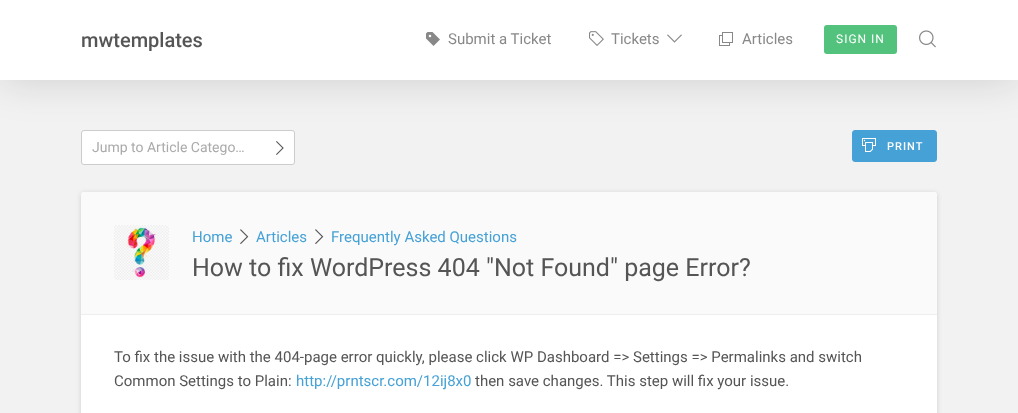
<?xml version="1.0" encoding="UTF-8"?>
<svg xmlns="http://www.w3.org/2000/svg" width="1018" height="413">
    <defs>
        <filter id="blur1" x="-50%" y="-200%" width="200%" height="500%"><feGaussianBlur stdDeviation="20"/></filter>
        <filter id="blur2" x="-50%" y="-200%" width="200%" height="500%"><feGaussianBlur stdDeviation="2.5"/></filter>
    </defs>
    <rect width="100%" height="100%" fill="#F2F2F2"/>
    <rect x="81.5" y="130.5" width="213" height="34" rx="2.5" fill="#FFFFFF" stroke="#CCCCCC"/>
    <image x="276" y="141" width="8" height="14" href="img_06.png"/>
    <rect x="852.5" y="130.5" width="84" height="31" rx="2.5" fill="#45A1D6" stroke="#45A1D6"/>
    <image x="862" y="138" width="14" height="14" href="img_07.png"/>
    <rect x="0" y="1" width="1018" height="80" fill="#000000" fill-opacity="0.15" filter="url(#blur1)"/>
    <rect x="0" y="0" width="1018" height="80" fill="#FFFFFF"/>
    <text x="81" y="47" font-family="Roboto" font-size="20" font-weight="500" fill="#555555">mwtemplates</text>
    <image x="426" y="32" width="14" height="14" href="img_01.png"/>
    <text x="448" y="44" font-family="Roboto" font-size="15" fill="#888888">Submit a Ticket</text>
    <image x="589" y="31" width="15" height="15" href="img_02.png"/>
    <text x="611" y="44" font-family="Roboto" font-size="15" fill="#888888">Tickets</text>
    <image x="667" y="34" width="15" height="9" href="img_03.png"/>
    <image x="719" y="32" width="14" height="14" href="img_04.png"/>
    <text x="742" y="44" font-family="Roboto" font-size="15" fill="#888888">Articles</text>
    <rect x="824" y="25" width="73" height="29" rx="3" fill="#52C27D"/>
    <text x="836" y="43" font-family="Roboto" font-size="12" letter-spacing="1" fill="#FFFFFF">SIGN IN</text>
    <image x="919" y="30" width="17" height="18" href="img_05.png"/>
    <text x="92" y="152" font-family="Roboto" font-size="14" fill="#AAAAAA">Jump to Article Catego…</text>
    <text x="887" y="150" font-family="Roboto" font-size="11" font-weight="500" letter-spacing="1" fill="#FFFFFF">PRINT</text>
    <rect x="81" y="193" width="856" height="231" rx="3" fill="#000000" fill-opacity="0.15" filter="url(#blur2)"/>
    <rect x="81" y="192" width="856" height="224" rx="3" fill="#FFFFFF"/>
    <path d="M 84 192 H 934 C 935.5 192 937 193.5 937 195 V 315 H 81 V 195 C 81 193.5 82.5 192 84 192 Z" fill="#FAFAFA"/>
    <rect x="81" y="314" width="856" height="1" fill="#EEEEEE"/>
    <image x="114" y="225" width="55" height="55" href="img_08.png"/>
    <text x="192" y="242" font-family="Roboto" font-size="15" fill="#45A1D6">Home</text>
    <image x="240" y="229" width="9" height="15" href="img_09.png"/>
    <text x="256" y="242" font-family="Roboto" font-size="15" fill="#45A1D6">Articles</text>
    <image x="315" y="229" width="9" height="15" href="img_09.png"/>
    <text x="331" y="242" font-family="Roboto" font-size="15" fill="#45A1D6">Frequently Asked Questions</text>
    <text x="192" y="276" font-family="Roboto" font-size="25" fill="#555555">How to fix WordPress 404 "Not Found" page Error?</text>
    <text font-family="Roboto" font-size="15" fill="#555555">
        <tspan x="114" y="362">To fix the issue with the 404-page error quickly, please click WP Dashboard =&gt; Settings =&gt; Permalinks and switch</tspan>
        <tspan x="114" y="386">Common Settings to Plain:</tspan>
    </text>
    <text x="296" y="386" font-family="Roboto" font-size="15" fill="#45A1D6">http://prntscr.com/12ij8x0</text>
    <text x="475" y="386" font-family="Roboto" font-size="15" fill="#555555">then save changes. This step will fix your issue.</text>
</svg>
